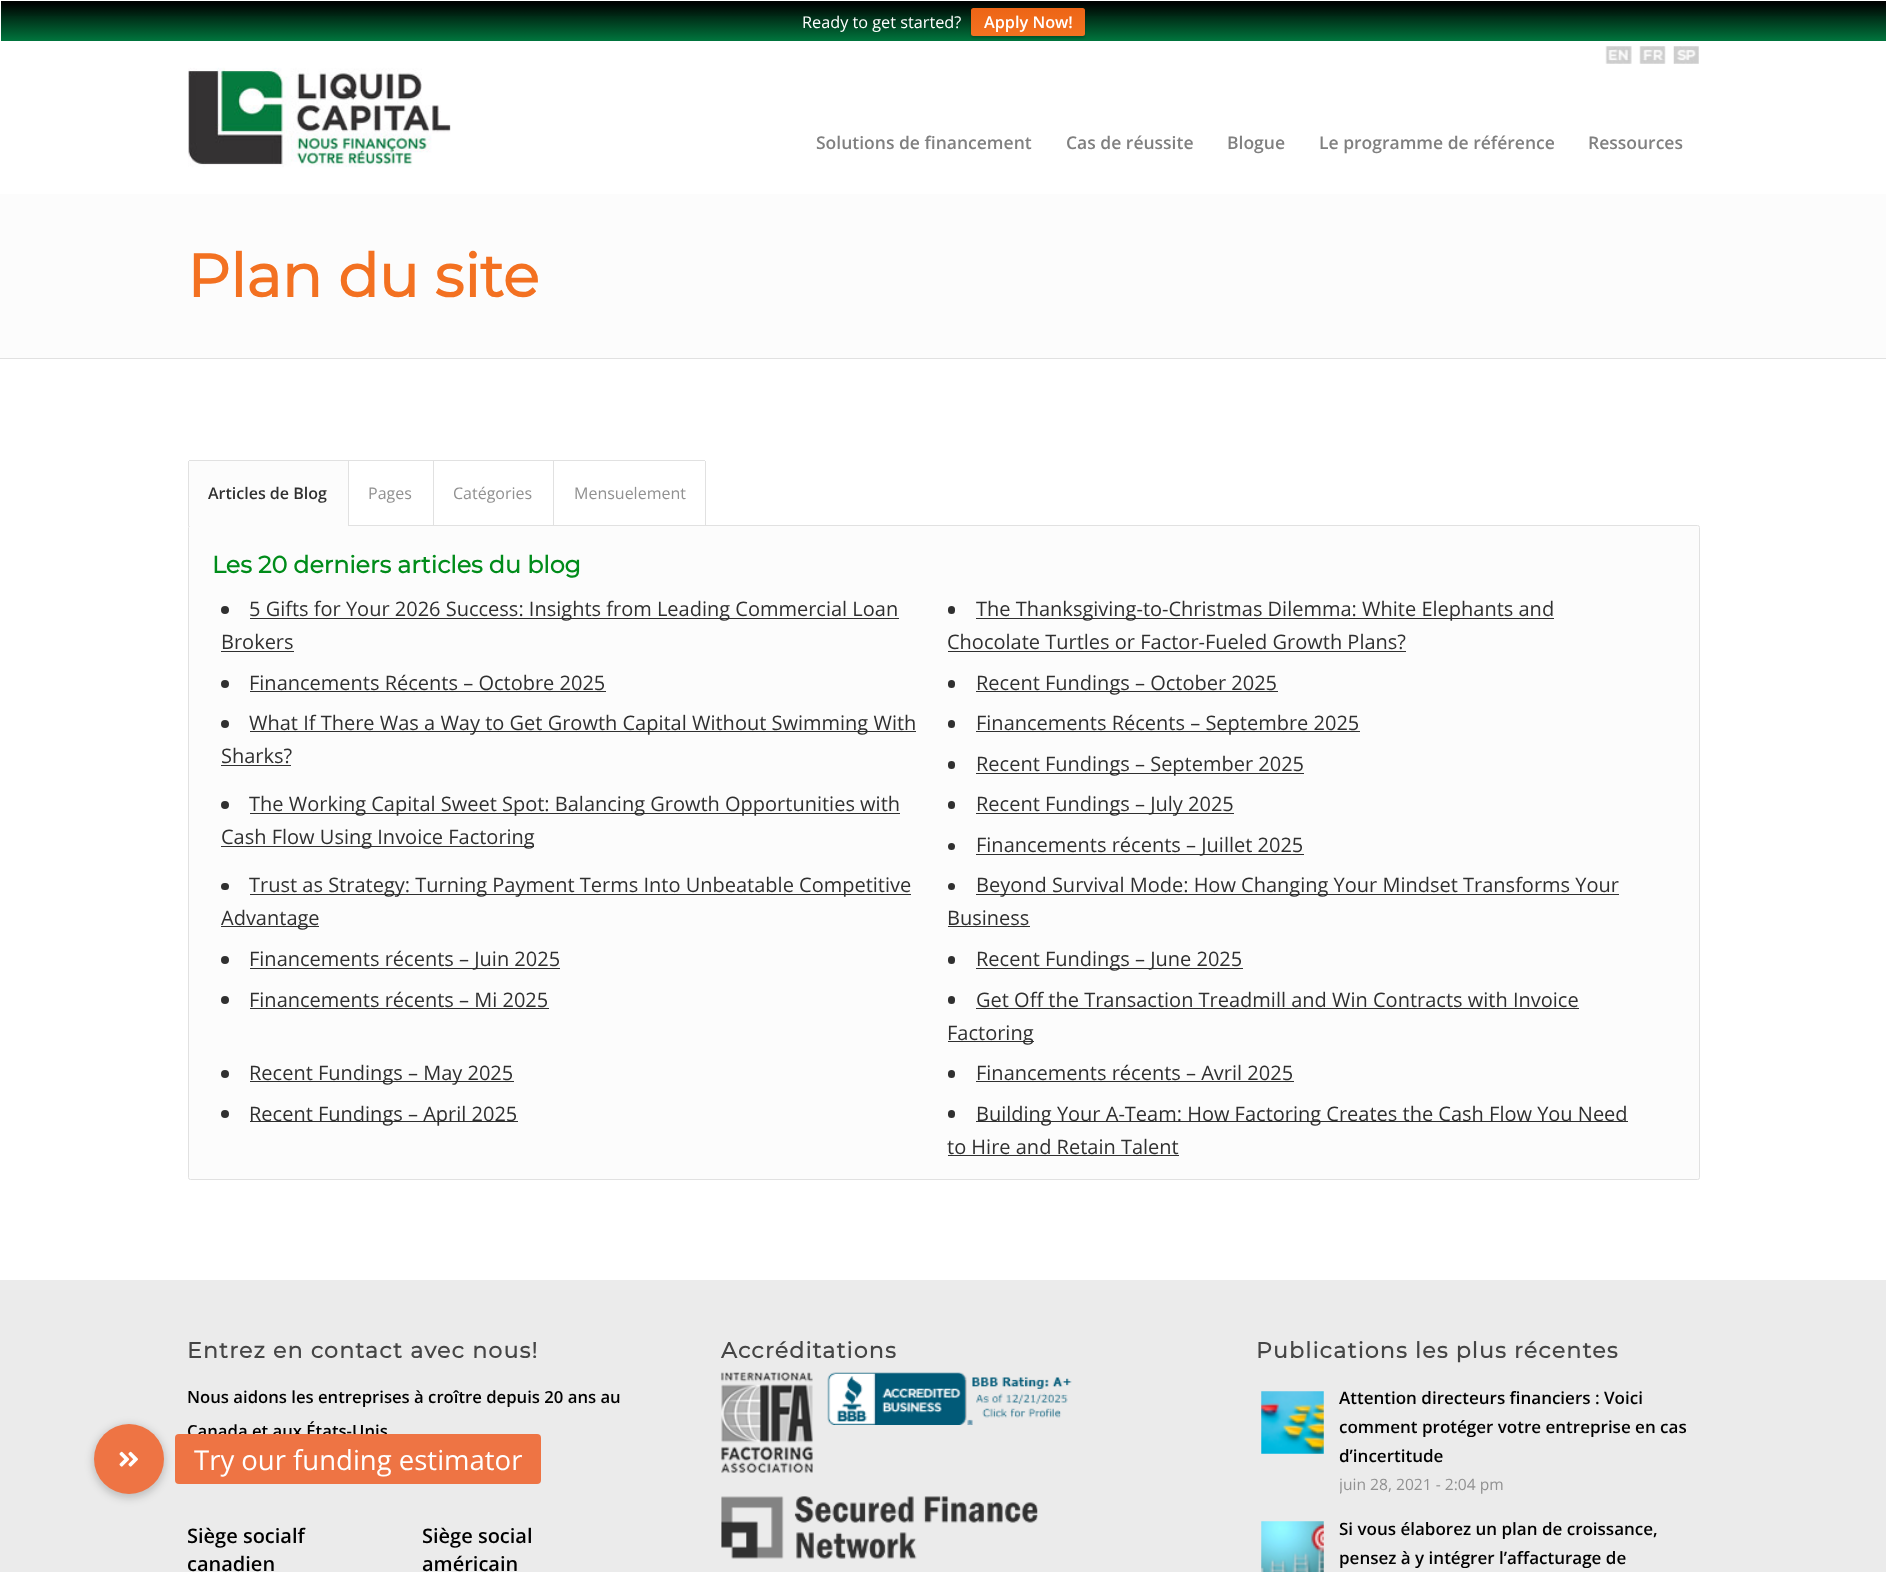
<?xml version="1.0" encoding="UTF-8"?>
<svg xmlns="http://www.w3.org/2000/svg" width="1886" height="1572">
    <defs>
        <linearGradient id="g1" gradientUnits="userSpaceOnUse" x1="944" y1="1.2" x2="944" y2="43"><stop offset="0" stop-color="#000000"/><stop offset="1" stop-color="#007B40"/></linearGradient>
        <linearGradient id="g2" gradientUnits="userSpaceOnUse" x1="944" y1="2.5" x2="944" y2="43"><stop offset="0" stop-color="#000000"/><stop offset="1" stop-color="#007B40"/></linearGradient>
        <filter id="blur1" x="-50%" y="-200%" width="200%" height="500%"><feGaussianBlur stdDeviation="1"/></filter>
        <linearGradient id="g3" gradientUnits="userSpaceOnUse" x1="1028" y1="7.5" x2="1028" y2="36"><stop offset="0" stop-color="#ED6415"/><stop offset="1" stop-color="#F37221"/></linearGradient>
        <clipPath id="clip1"><rect x="188" y="1319" width="442" height="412"/></clipPath>
        <clipPath id="clip2"><rect x="1340" y="1384" width="359" height="115"/></clipPath>
        <filter id="blur2" x="-50%" y="-200%" width="200%" height="500%"><feGaussianBlur stdDeviation="4"/></filter>
    </defs>
    <rect width="100%" height="100%" fill="#FFFFFF"/>
    <rect x="1" y="1" width="1885" height="40" fill="url(#g1)"/>
    <rect x="3" y="3" width="1883" height="13" fill="url(#g2)"/>
    <text x="802" y="28" font-family="Open Sans" font-size="16.25" fill="#FFFFFF">Ready to get started?</text>
    <rect x="971" y="9" width="114" height="29" rx="2.5" fill="#000000" fill-opacity="0.2" filter="url(#blur1)"/>
    <rect x="971" y="8" width="114" height="28" rx="2.5" fill="url(#g3)"/>
    <text x="984" y="28" font-family="Open Sans" font-size="16.25" font-weight="600" fill="#FFFFFF">Apply Now!</text>
    <image x="1605" y="46" width="27" height="18" href="img_01.png"/>
    <image x="1639" y="46" width="27" height="18" href="img_02.png"/>
    <image x="1673" y="46" width="26" height="18" href="img_03.png"/>
    <image x="188" y="67" width="263" height="101" href="img_04.png"/>
    <text x="816" y="149" font-family="Open Sans" font-size="17.5" font-weight="600" fill="#808080">Solutions de financement</text>
    <text x="1066" y="149" font-family="Open Sans" font-size="17.5" font-weight="600" fill="#808080">Cas de réussite</text>
    <text x="1227" y="149" font-family="Open Sans" font-size="17.5" font-weight="600" fill="#808080">Blogue</text>
    <text x="1319" y="149" font-family="Open Sans" font-size="17.5" font-weight="600" fill="#808080">Le programme de référence</text>
    <text x="1588" y="149" font-family="Open Sans" font-size="17.5" font-weight="600" fill="#808080">Ressources</text>
    <rect x="0" y="194" width="1886" height="164" fill="#FCFCFC"/>
    <text x="187" y="297" font-family="Montserrat" font-size="60" font-weight="700" fill="#F37121">Plan du site</text>
    <rect x="0" y="358" width="1886" height="1" fill="#E1E1E1"/>
    <rect x="348" y="460" width="86" height="1" fill="#E1E1E1"/>
    <rect x="188.5" y="525.5" width="1511" height="654" rx="2" fill="#FCFCFC" stroke="#E1E1E1"/>
    <path d="M 190.5 460 H 349 V 526 H 188 V 462.5 C 188 461 189 460 190.5 460 Z" fill="#FCFCFC"/>
    <rect x="189" y="460" width="160" height="1" fill="#E1E1E1"/>
    <rect x="348" y="460" width="1" height="66" fill="#E1E1E1"/>
    <rect x="188" y="461" width="1" height="65" fill="#E1E1E1"/>
    <text x="208" y="499" font-family="Open Sans" font-size="16" font-weight="600" fill="#303030">Articles de Blog</text>
    <rect x="433" y="460" width="1" height="66" fill="#E1E1E1"/>
    <text x="368" y="499" font-family="Open Sans" font-size="16" fill="#919191">Pages</text>
    <rect x="433" y="460" width="121" height="1" fill="#E1E1E1"/>
    <rect x="553" y="460" width="1" height="66" fill="#E1E1E1"/>
    <text x="453" y="499" font-family="Open Sans" font-size="16" fill="#919191">Catégories</text>
    <rect x="553" y="460" width="152" height="1" fill="#E1E1E1"/>
    <rect x="705" y="461" width="1" height="65" fill="#E1E1E1"/>
    <text x="574" y="499" font-family="Open Sans" font-size="16" fill="#919191">Mensuelement</text>
    <text x="212" y="573" font-family="Montserrat" font-size="23.75" font-weight="700" fill="#008C1A">Les 20 derniers articles du blog</text>
    <circle cx="225" cy="610" r="4" fill="#303030"/>
    <rect x="250" y="618" width="649" height="1" fill="#303030"/>
    <text x="249" y="616" font-family="Open Sans" font-size="20" fill="#303030">5 Gifts for Your 2026 Success: Insights from Leading Commercial Loan</text>
    <text x="221" y="649" font-family="Open Sans" font-size="20" fill="#303030">Brokers</text>
    <rect x="221" y="651" width="73" height="1" fill="#303030"/>
    <rect x="948" y="606" width="7" height="8" rx="3.5" fill="#303030"/>
    <rect x="976" y="618" width="578" height="1" fill="#303030"/>
    <text x="976" y="616" font-family="Open Sans" font-size="20" fill="#303030">The Thanksgiving-to-Christmas Dilemma: White Elephants and</text>
    <text x="947" y="649" font-family="Open Sans" font-size="20" fill="#303030">Chocolate Turtles or Factor-Fueled Growth Plans?</text>
    <rect x="948" y="651" width="458" height="1" fill="#303030"/>
    <circle cx="225" cy="684" r="4" fill="#303030"/>
    <text x="249" y="690" font-family="Open Sans" font-size="20" fill="#303030">Financements Récents – Octobre 2025</text>
    <rect x="250" y="691" width="356" height="1" fill="#303030"/>
    <rect x="948" y="680" width="7" height="8" rx="3.5" fill="#303030"/>
    <rect x="976" y="691" width="302" height="1" fill="#303030"/>
    <text x="976" y="690" font-family="Open Sans" font-size="20" fill="#303030">Recent Fundings – October 2025</text>
    <circle cx="225" cy="724" r="4" fill="#303030"/>
    <rect x="250" y="731" width="666" height="1" fill="#303030"/>
    <text x="249" y="730" font-family="Open Sans" font-size="20" fill="#303030">What If There Was a Way to Get Growth Capital Without Swimming With</text>
    <text x="221" y="763" font-family="Open Sans" font-size="20" fill="#303030">Sharks?</text>
    <rect x="221" y="765" width="70" height="1" fill="#303030"/>
    <rect x="948" y="720" width="7" height="8" rx="3.5" fill="#303030"/>
    <rect x="976" y="731" width="384" height="1" fill="#303030"/>
    <text x="976" y="730" font-family="Open Sans" font-size="20" fill="#303030">Financements Récents – Septembre 2025</text>
    <rect x="948" y="761" width="7" height="8" rx="3.5" fill="#303030"/>
    <rect x="976" y="773" width="328" height="1" fill="#303030"/>
    <text x="976" y="771" font-family="Open Sans" font-size="20" fill="#303030">Recent Fundings – September 2025</text>
    <circle cx="225" cy="805" r="4" fill="#303030"/>
    <rect x="250" y="813" width="650" height="1" fill="#303030"/>
    <text x="249" y="811" font-family="Open Sans" font-size="20" fill="#303030">The Working Capital Sweet Spot: Balancing Growth Opportunities with</text>
    <rect x="221" y="846" width="313" height="1" fill="#303030"/>
    <text x="221" y="844" font-family="Open Sans" font-size="20" fill="#303030">Cash Flow Using Invoice Factoring</text>
    <rect x="948" y="801" width="7" height="8" rx="3.5" fill="#303030"/>
    <rect x="976" y="813" width="258" height="1" fill="#303030"/>
    <text x="976" y="811" font-family="Open Sans" font-size="20" fill="#303030">Recent Fundings – July 2025</text>
    <circle cx="951.5" cy="846.5" r="3.5" fill="#303030"/>
    <rect x="976" y="854" width="328" height="1" fill="#303030"/>
    <text x="976" y="852" font-family="Open Sans" font-size="20" fill="#303030">Financements récents – Juillet 2025</text>
    <rect x="221" y="883" width="8" height="7" rx="3.5" fill="#303030"/>
    <rect x="250" y="894" width="661" height="1" fill="#303030"/>
    <text x="249" y="892" font-family="Open Sans" font-size="20" fill="#303030">Trust as Strategy: Turning Payment Terms Into Unbeatable Competitive</text>
    <rect x="221" y="926" width="98" height="1" fill="#303030"/>
    <text x="221" y="925" font-family="Open Sans" font-size="20" fill="#303030">Advantage</text>
    <circle cx="951.5" cy="886.5" r="3.5" fill="#303030"/>
    <rect x="976" y="894" width="643" height="1" fill="#303030"/>
    <text x="976" y="892" font-family="Open Sans" font-size="20" fill="#303030">Beyond Survival Mode: How Changing Your Mindset Transforms Your</text>
    <text x="947" y="925" font-family="Open Sans" font-size="20" fill="#303030">Business</text>
    <rect x="948" y="926" width="82" height="1" fill="#303030"/>
    <circle cx="225" cy="960" r="4" fill="#303030"/>
    <rect x="250" y="968" width="310" height="1" fill="#303030"/>
    <text x="249" y="966" font-family="Open Sans" font-size="20" fill="#303030">Financements récents – Juin 2025</text>
    <rect x="948" y="956" width="7" height="8" rx="3.5" fill="#303030"/>
    <rect x="976" y="968" width="267" height="1" fill="#303030"/>
    <text x="976" y="966" font-family="Open Sans" font-size="20" fill="#303030">Recent Fundings – June 2025</text>
    <circle cx="225" cy="1000" r="4" fill="#303030"/>
    <text x="249" y="1007" font-family="Open Sans" font-size="20" fill="#303030">Financements récents – Mi 2025</text>
    <rect x="250" y="1008" width="299" height="1" fill="#303030"/>
    <rect x="948" y="996" width="7" height="8" rx="3.5" fill="#303030"/>
    <text x="976" y="1007" font-family="Open Sans" font-size="20" fill="#303030">Get Off the Transaction Treadmill and Win Contracts with Invoice</text>
    <rect x="976" y="1008" width="603" height="1" fill="#303030"/>
    <rect x="948" y="1041" width="86" height="1" fill="#303030"/>
    <text x="947" y="1040" font-family="Open Sans" font-size="20" fill="#303030">Factoring</text>
    <circle cx="225" cy="1074" r="4" fill="#303030"/>
    <rect x="250" y="1081" width="264" height="1" fill="#303030"/>
    <text x="249" y="1080" font-family="Open Sans" font-size="20" fill="#303030">Recent Fundings – May 2025</text>
    <rect x="948" y="1070" width="7" height="8" rx="3.5" fill="#303030"/>
    <text x="976" y="1080" font-family="Open Sans" font-size="20" fill="#303030">Financements récents – Avril 2025</text>
    <rect x="976" y="1081" width="318" height="1" fill="#303030"/>
    <circle cx="225" cy="1114" r="4" fill="#303030"/>
    <rect x="250" y="1121" width="268" height="1" fill="#303030"/>
    <text x="249" y="1121" font-family="Open Sans" font-size="20" fill="#303030">Recent Fundings – April 2025</text>
    <rect x="948" y="1110" width="7" height="8" rx="3.5" fill="#303030"/>
    <rect x="976" y="1121" width="652" height="1" fill="#303030"/>
    <text x="976" y="1121" font-family="Open Sans" font-size="20" fill="#303030">Building Your A-Team: How Factoring Creates the Cash Flow You Need</text>
    <text x="947" y="1154" font-family="Open Sans" font-size="20" fill="#303030">to Hire and Retain Talent</text>
    <rect x="948" y="1155" width="231" height="1" fill="#303030"/>
    <rect x="0" y="1280" width="1886" height="292" fill="#EBEBEB"/>
    <text x="187" y="1358" font-family="Montserrat" font-size="22" font-weight="700" letter-spacing="1.25" fill="#454545">Entrez en contact avec nous!</text>
    <text x="187" y="1403" font-family="Open Sans" font-size="16.7" font-weight="600" fill="#000000">Nous aidons les entreprises à croître depuis 20 ans au</text>
    <text x="187" y="1437" font-family="Open Sans" font-size="16.7" font-weight="600" fill="#000000">Canada et aux États-Unis</text>
    <g clip-path="url(#clip1)">
        <text x="187" y="1543" font-family="Open Sans" font-size="20" font-weight="600" fill="#000000">Siège socialf</text>
    </g>
    <text x="187" y="1571" font-family="Open Sans" font-size="20" font-weight="600" fill="#000000">canadien</text>
    <text font-family="Open Sans" font-size="20" font-weight="600" fill="#000000">
        <tspan x="422" y="1543">Siège social</tspan>
        <tspan x="422" y="1571">américain</tspan>
    </text>
    <text x="721" y="1358" font-family="Montserrat" font-size="22" font-weight="700" letter-spacing="1.25" fill="#454545">Accréditations</text>
    <image x="721" y="1372" width="92" height="101" href="img_05.png"/>
    <image x="827" y="1372" width="245" height="53" href="img_06.png"/>
    <image x="721" y="1496" width="317" height="63" href="img_07.png"/>
    <text x="1256" y="1358" font-family="Montserrat" font-size="22" font-weight="700" letter-spacing="1.25" fill="#454545">Publications les plus récentes</text>
    <image x="1261" y="1391" width="63" height="63" href="img_08.png"/>
    <text font-family="Open Sans" font-size="17" font-weight="600" fill="#000000">
        <tspan x="1339" y="1404">Attention directeurs financiers : Voici</tspan>
        <tspan x="1339" y="1433">comment protéger votre entreprise en cas</tspan>
        <tspan x="1339" y="1462">d’incertitude</tspan>
    </text>
    <g clip-path="url(#clip2)">
        <text x="1339" y="1490" font-family="Open Sans" font-size="15.6" fill="#919191">juin 28, 2021 - 2:04 pm</text>
    </g>
    <image x="1261" y="1521" width="63" height="51" href="img_09.png"/>
    <text font-family="Open Sans" font-size="17" font-weight="600" fill="#000000">
        <tspan x="1339" y="1535">Si vous élaborez un plan de croissance,</tspan>
        <tspan x="1339" y="1564">pensez à y intégrer l’affacturage de</tspan>
    </text>
    <rect x="93" y="1425" width="72" height="73" rx="36" fill="#000000" fill-opacity="0.2" filter="url(#blur2)"/>
    <circle cx="129" cy="1459" r="35" fill="#EE7444"/>
    <image x="119" y="1451" width="19" height="16" href="img_10.png"/>
    <rect x="175" y="1434" width="366" height="50" rx="4" fill="#EE7444"/>
    <text x="194" y="1470" font-family="Open Sans" font-size="27.5" fill="#FFFFFF">Try our funding estimator</text>
</svg>
